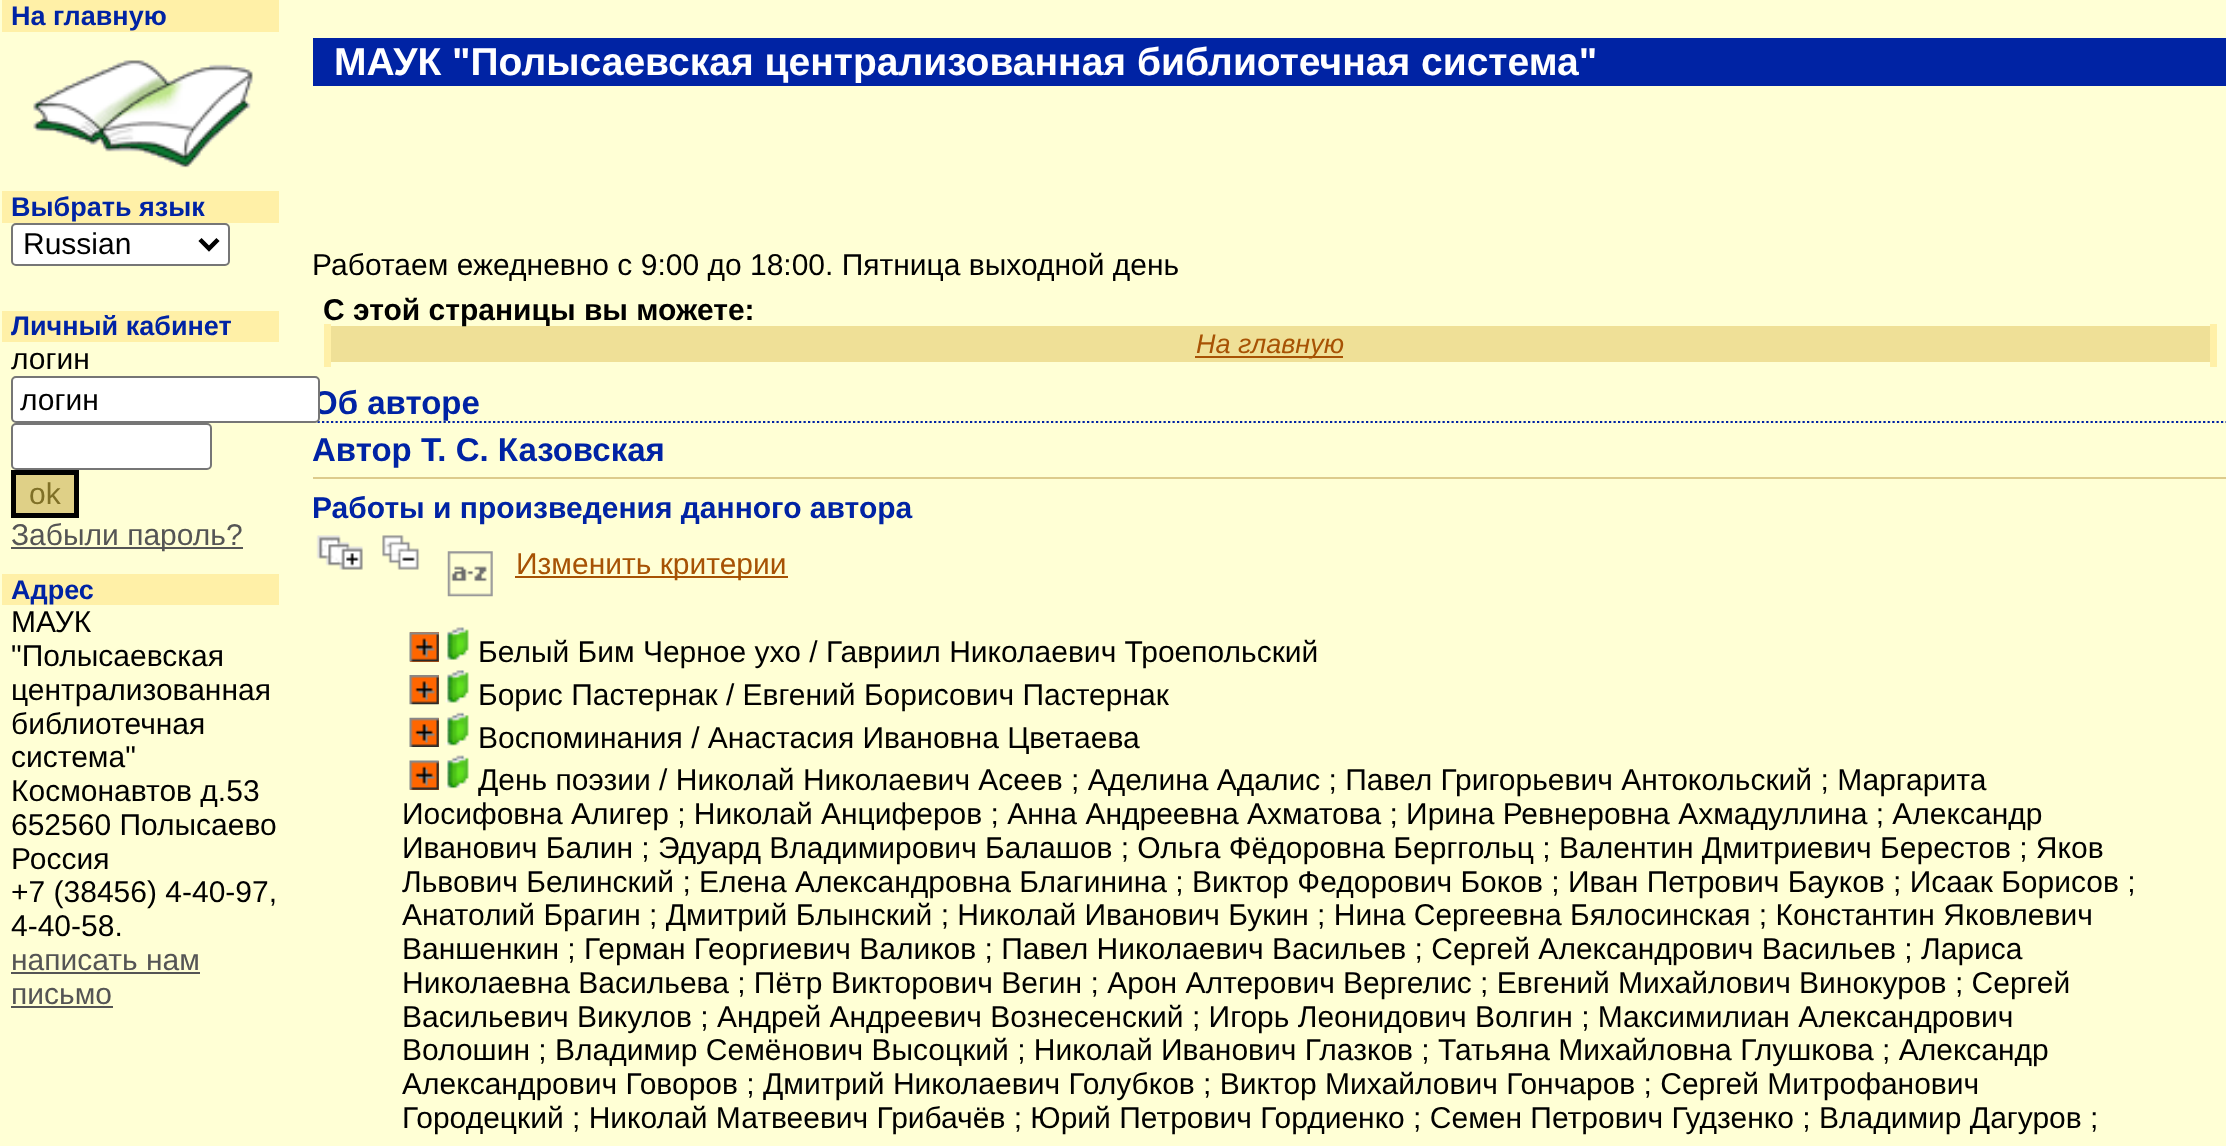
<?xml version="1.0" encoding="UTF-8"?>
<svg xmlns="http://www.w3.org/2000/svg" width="2226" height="1146">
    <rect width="100%" height="100%" fill="#FFFFD5"/>
    <rect x="2" y="0" width="277" height="32" fill="#FFF0A7"/>
    <text x="11" y="25" font-family="Liberation Sans" font-size="27" font-weight="700" fill="#0023A4">На главную</text>
    <image x="33" y="60" width="220" height="108" href="img_01.png"/>
    <rect x="2" y="191" width="277" height="32" fill="#FFF0A7"/>
    <text x="11" y="216" font-family="Liberation Sans" font-size="27" font-weight="700" fill="#0023A4">Выбрать язык</text>
    <rect x="12" y="224" width="217" height="41" rx="4" fill="#FFFFFF" stroke="#767676" stroke-width="2"/>
    <path d="M 200 239.5 L 209 248.5 L 218 239.5" fill="none" stroke="#000000" stroke-width="4.5"/>
    <text x="23" y="254" font-family="Liberation Sans" font-size="30" fill="#000000">Russian</text>
    <rect x="2" y="311" width="277" height="31" fill="#FFF0A7"/>
    <text x="11" y="335" font-family="Liberation Sans" font-size="27" font-weight="700" fill="#0023A4">Личный кабинет</text>
    <text x="11" y="369" font-family="Liberation Sans" font-size="30" fill="#000000">логин</text>
    <path d="M 313 422 H 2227.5" fill="none" stroke="#0023A4" stroke-width="2.2" stroke-dasharray="2.25 2.25"/>
    <text x="312" y="414" font-family="Liberation Sans" font-size="33" font-weight="700" fill="#0023A4">Об авторе</text>
    <rect x="12" y="377" width="307" height="45" rx="4" fill="#FFFFFF" stroke="#767676" stroke-width="2"/>
    <text x="20" y="410" font-family="Liberation Sans" font-size="30" fill="#000000">логин</text>
    <rect x="12" y="424" width="199" height="45" rx="4" fill="#FFFFFF" stroke="#767676" stroke-width="2"/>
    <rect x="13.5" y="472.5" width="63" height="43" fill="#DFD087" stroke="#000000" stroke-width="5"/>
    <text x="29" y="504" font-family="Liberation Sans" font-size="30" fill="#7F7027">ok</text>
    <rect x="11" y="547" width="232" height="2" fill="#555555"/>
    <text x="11" y="545" font-family="Liberation Sans" font-size="30" fill="#555555">Забыли пароль?</text>
    <rect x="2" y="574" width="277" height="31" fill="#FFF0A7"/>
    <text x="11" y="599" font-family="Liberation Sans" font-size="27" font-weight="700" fill="#0023A4">Адрес</text>
    <text font-family="Liberation Sans" font-size="30" fill="#000000">
        <tspan x="11" y="632">МАУК</tspan>
        <tspan x="11" y="666">"Полысаевская</tspan>
        <tspan x="11" y="700">централизованная</tspan>
        <tspan x="11" y="734">библиотечная</tspan>
        <tspan x="11" y="767">система"</tspan>
        <tspan x="11" y="801">Космонавтов д.53</tspan>
        <tspan x="11" y="835">652560 Полысаево</tspan>
        <tspan x="11" y="869">Россия</tspan>
        <tspan x="11" y="902">+7 (38456) 4-40-97,</tspan>
        <tspan x="11" y="936">4-40-58.</tspan>
    </text>
    <text x="11" y="970" font-family="Liberation Sans" font-size="30" fill="#555555">написать нам</text>
    <rect x="11" y="972" width="189" height="2" fill="#555555"/>
    <text x="11" y="1004" font-family="Liberation Sans" font-size="30" fill="#555555">письмо</text>
    <rect x="11" y="1006" width="102" height="2" fill="#555555"/>
    <rect x="313" y="38" width="1913" height="48" fill="#0023A4"/>
    <text x="334" y="75" font-family="Liberation Sans" font-size="39" font-weight="700" fill="#FFFFFF">МАУК "Полысаевская централизованная библиотечная система"</text>
    <text x="312" y="275" font-family="Liberation Sans" font-size="30" fill="#000000">Работаем ежедневно с 9:00 до 18:00. Пятница выходной день</text>
    <rect x="331" y="326" width="1879" height="36" fill="#EFE097"/>
    <rect x="324" y="324" width="7" height="43" fill="#FFF0A7"/>
    <text x="323" y="320" font-family="Liberation Sans" font-size="30" font-weight="700" fill="#000000">С этой страницы вы можете:</text>
    <rect x="2210" y="324" width="7" height="43" fill="#FFF0A7"/>
    <rect x="1195" y="356" width="148" height="2" fill="#A75204"/>
    <text x="1196" y="353" font-family="Liberation Sans" font-size="27" font-style="italic" fill="#A75204">На главную</text>
    <rect x="313" y="477" width="1913" height="2" fill="#DDCB8C"/>
    <text x="312" y="461" font-family="Liberation Sans" font-size="33" font-weight="700" fill="#0023A4">Автор Т. С. Казовская</text>
    <text x="312" y="518" font-family="Liberation Sans" font-size="30" font-weight="700" fill="#0023A4">Работы и произведения данного автора</text>
    <image x="316" y="535" width="47" height="35" href="img_02.png"/>
    <image x="382" y="535" width="38" height="35" href="img_03.png"/>
    <image x="447" y="551" width="46" height="46" href="img_04.png"/>
    <rect x="515" y="576" width="273" height="2" fill="#A75204"/>
    <text x="516" y="574" font-family="Liberation Sans" font-size="30" fill="#A75204">Изменить критерии</text>
    <rect x="410" y="632" width="29" height="30" fill="#FF6600"/>
    <image x="409" y="632" width="30" height="30" href="img_05.png"/>
    <image x="445" y="627" width="24" height="33" href="img_06.png"/>
    <text x="478" y="662" font-family="Liberation Sans" font-size="30" fill="#000000">Белый Бим Черное ухо / Гавриил Николаевич Троепольский</text>
    <rect x="411" y="675" width="28" height="29" fill="#FF6600"/>
    <image x="409" y="675" width="30" height="30" href="img_07.png"/>
    <image x="445" y="670" width="24" height="33" href="img_08.png"/>
    <text x="478" y="705" font-family="Liberation Sans" font-size="30" fill="#000000">Борис Пастернак / Евгений Борисович Пастернак</text>
    <rect x="411" y="718" width="28" height="29" fill="#FF6600"/>
    <image x="409" y="717" width="30" height="30" href="img_09.png"/>
    <image x="445" y="712" width="24" height="34" href="img_10.png"/>
    <text x="478" y="748" font-family="Liberation Sans" font-size="30" fill="#000000">Воспоминания / Анастасия Ивановна Цветаева</text>
    <rect x="410" y="761" width="29" height="29" fill="#FF6600"/>
    <image x="409" y="760" width="30" height="30" href="img_11.png"/>
    <image x="445" y="755" width="24" height="34" href="img_12.png"/>
    <text x="478" y="790" font-family="Liberation Sans" font-size="30" fill="#000000">День поэзии / Николай Николаевич Асеев ; Аделина Адалис ; Павел Григорьевич Антокольский ; Маргарита</text>
    <text font-family="Liberation Sans" font-size="30" fill="#000000">
        <tspan x="402" y="824">Иосифовна Алигер ; Николай Анциферов ; Анна Андреевна Ахматова ; Ирина Ревнеровна Ахмадуллина ; Александр</tspan>
        <tspan x="402" y="858">Иванович Балин ; Эдуард Владимирович Балашов ; Ольга Фёдоровна Берггольц ; Валентин Дмитриевич Берестов ; Яков</tspan>
        <tspan x="402" y="892">Львович Белинский ; Елена Александровна Благинина ; Виктор Федорович Боков ; Иван Петрович Бауков ; Исаак Борисов ;</tspan>
        <tspan x="402" y="925">Анатолий Брагин ; Дмитрий Блынский ; Николай Иванович Букин ; Нина Сергеевна Бялосинская ; Константин Яковлевич</tspan>
        <tspan x="402" y="959">Ваншенкин ; Герман Георгиевич Валиков ; Павел Николаевич Васильев ; Сергей Александрович Васильев ; Лариса</tspan>
        <tspan x="402" y="993">Николаевна Васильева ; Пётр Викторович Вегин ; Арон Алтерович Вергелис ; Евгений Михайлович Винокуров ; Сергей</tspan>
        <tspan x="402" y="1027">Васильевич Викулов ; Андрей Андреевич Вознесенский ; Игорь Леонидович Волгин ; Максимилиан Александрович</tspan>
        <tspan x="402" y="1060">Волошин ; Владимир Семёнович Высоцкий ; Николай Иванович Глазков ; Татьяна Михайловна Глушкова ; Александр</tspan>
        <tspan x="402" y="1094">Александрович Говоров ; Дмитрий Николаевич Голубков ; Виктор Михайлович Гончаров ; Сергей Митрофанович</tspan>
        <tspan x="402" y="1128">Городецкий ; Николай Матвеевич Грибачёв ; Юрий Петрович Гордиенко ; Семен Петрович Гудзенко ; Владимир Дагуров ;</tspan>
    </text>
</svg>
